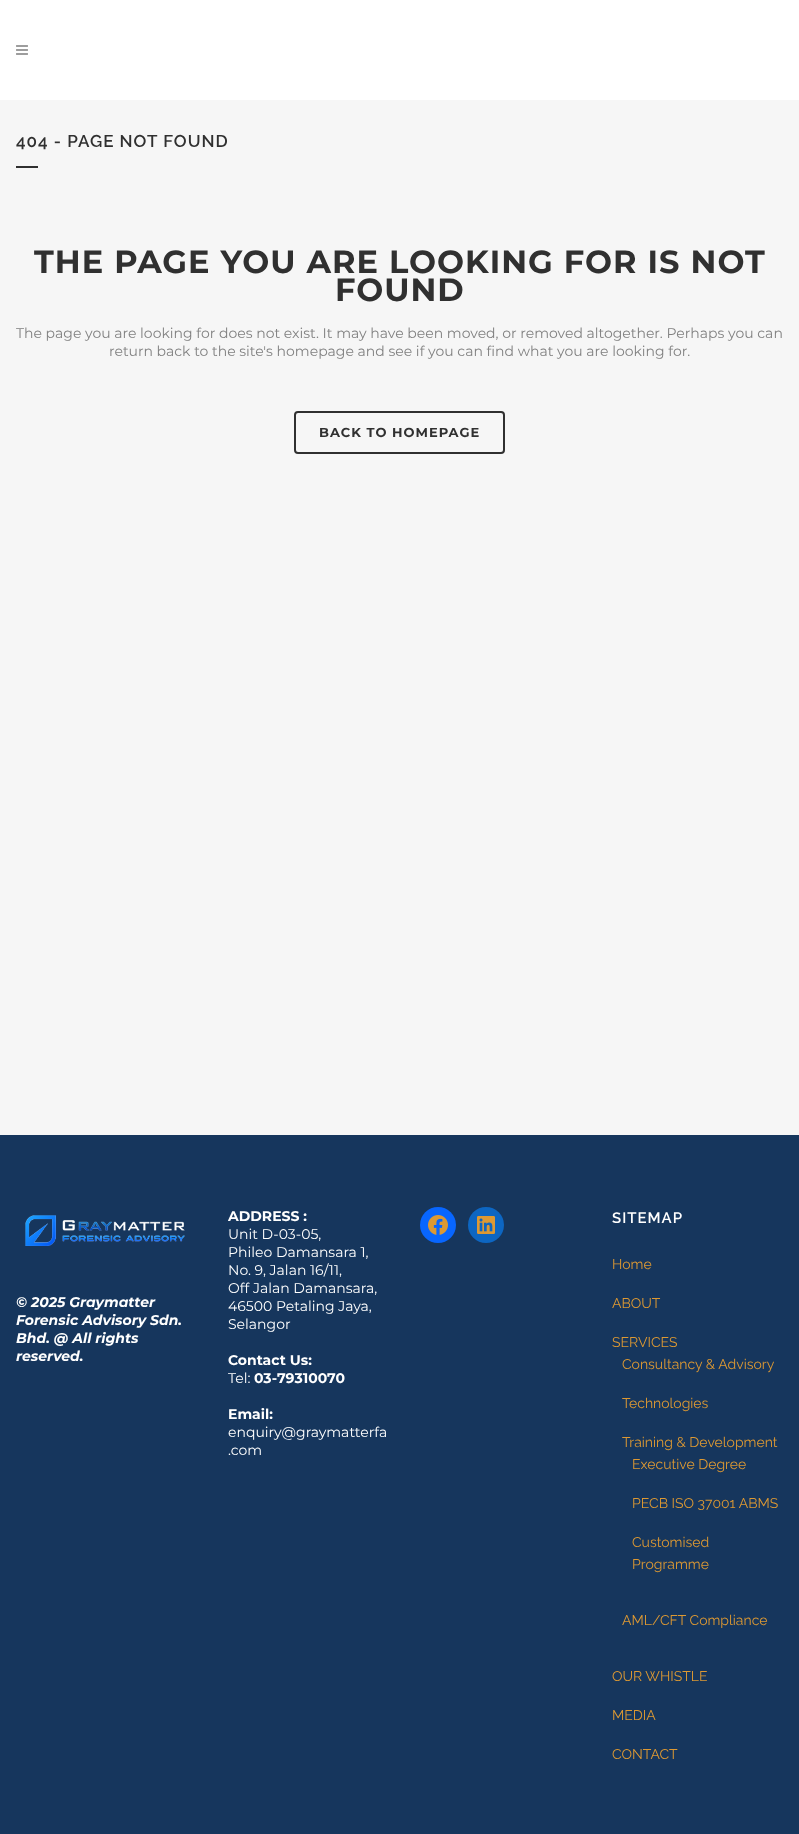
<?xml version="1.0" encoding="UTF-8"?>
<svg xmlns="http://www.w3.org/2000/svg" width="799" height="1834">
    <rect width="100%" height="100%" fill="#F6F6F6"/>
    <rect x="0" y="0" width="799" height="100" fill="#FFFFFF"/>
    <image x="16" y="45" width="12" height="10" href="img_01.png"/>
    <text x="16" y="147" font-family="Raleway" font-size="17" font-weight="600" letter-spacing="1" fill="#303030">404 - PAGE NOT FOUND</text>
    <rect x="16" y="166" width="22" height="2" fill="#303030"/>
    <text x="34" y="273" font-family="Montserrat" font-size="32" font-weight="700" letter-spacing="1" fill="#303030">THE PAGE YOU ARE LOOKING FOR IS NOT</text>
    <text x="335" y="301" font-family="Montserrat" font-size="32" font-weight="700" letter-spacing="1" fill="#303030">FOUND</text>
    <text x="16" y="338" font-family="Montserrat" font-size="14" fill="#818181">The page you are looking for does not exist. It may have been moved, or removed altogether. Perhaps you can</text>
    <text x="109" y="356" font-family="Montserrat" font-size="14" fill="#818181">return back to the site's homepage and see if you can find what you are looking for.</text>
    <rect x="295" y="412" width="209" height="41" rx="3" fill="none" stroke="#303030" stroke-width="2"/>
    <text x="319" y="437" font-family="Montserrat" font-size="13" font-weight="700" letter-spacing="1" fill="#303030">BACK TO HOMEPAGE</text>
    <rect x="0" y="1135" width="799" height="699" fill="#16365D"/>
    <image x="25" y="1215" width="160" height="31" href="img_02.png"/>
    <text font-family="Montserrat" font-size="14" font-weight="700" font-style="italic" fill="#FFFFFF">
        <tspan x="16" y="1307">© 2025 Graymatter</tspan>
        <tspan x="16" y="1325">Forensic Advisory Sdn.</tspan>
        <tspan x="16" y="1343">Bhd. @ All rights</tspan>
        <tspan x="16" y="1361">reserved.</tspan>
    </text>
    <text x="228" y="1221" font-family="Montserrat" font-size="14" font-weight="700" fill="#FFFFFF">ADDRESS :</text>
    <text font-family="Montserrat" font-size="14" fill="#FFFFFF">
        <tspan x="228" y="1239">Unit D-03-05,</tspan>
        <tspan x="228" y="1257">Phileo Damansara 1,</tspan>
        <tspan x="228" y="1275">No. 9, Jalan 16/11,</tspan>
        <tspan x="228" y="1293">Off Jalan Damansara,</tspan>
        <tspan x="228" y="1311">46500 Petaling Jaya,</tspan>
        <tspan x="228" y="1329">Selangor</tspan>
    </text>
    <text x="228" y="1365" font-family="Montserrat" font-size="14" font-weight="700" fill="#FFFFFF">Contact Us:</text>
    <text x="228" y="1383" font-family="Montserrat" font-size="14" fill="#FFFFFF">Tel:</text>
    <text x="254" y="1383" font-family="Montserrat" font-size="14" font-weight="700" fill="#FFFFFF">03-79310070</text>
    <text x="228" y="1419" font-family="Montserrat" font-size="14" font-weight="700" fill="#FFFFFF">Email:</text>
    <text font-family="Montserrat" font-size="14" fill="#FFFFFF">
        <tspan x="228" y="1437">enquiry@graymatterfa</tspan>
        <tspan x="228" y="1455">.com</tspan>
    </text>
    <circle cx="438" cy="1225" r="18" fill="#0866FF"/>
    <image x="428" y="1215" width="20" height="20" href="img_03.png"/>
    <circle cx="486" cy="1225" r="18" fill="#0D66C2"/>
    <image x="477" y="1216" width="18" height="18" href="img_04.png"/>
    <text x="612" y="1223" font-family="Raleway" font-size="15" font-weight="600" letter-spacing="1" fill="#FFFFFF">SITEMAP</text>
    <text x="612" y="1269" font-family="Raleway" font-size="14" fill="#DD9933">Home</text>
    <text x="612" y="1308" font-family="Raleway" font-size="14" fill="#DD9933">ABOUT</text>
    <text x="612" y="1347" font-family="Raleway" font-size="14" fill="#DD9933">SERVICES</text>
    <text x="622" y="1369" font-family="Raleway" font-size="14" fill="#DD9933">Consultancy &amp; Advisory</text>
    <text x="622" y="1408" font-family="Raleway" font-size="14" fill="#DD9933">Technologies</text>
    <text x="622" y="1447" font-family="Raleway" font-size="14" fill="#DD9933">Training &amp; Development</text>
    <text x="632" y="1469" font-family="Raleway" font-size="14" fill="#DD9933">Executive Degree</text>
    <text x="632" y="1508" font-family="Raleway" font-size="14" fill="#DD9933">PECB ISO 37001 ABMS</text>
    <text font-family="Raleway" font-size="14" fill="#DD9933">
        <tspan x="632" y="1547">Customised</tspan>
        <tspan x="632" y="1569">Programme</tspan>
    </text>
    <text x="622" y="1625" font-family="Raleway" font-size="14" fill="#DD9933">AML/CFT Compliance</text>
    <text x="612" y="1681" font-family="Raleway" font-size="14" fill="#DD9933">OUR WHISTLE</text>
    <text x="612" y="1720" font-family="Raleway" font-size="14" fill="#DD9933">MEDIA</text>
    <text x="612" y="1759" font-family="Raleway" font-size="14" fill="#DD9933">CONTACT</text>
</svg>
